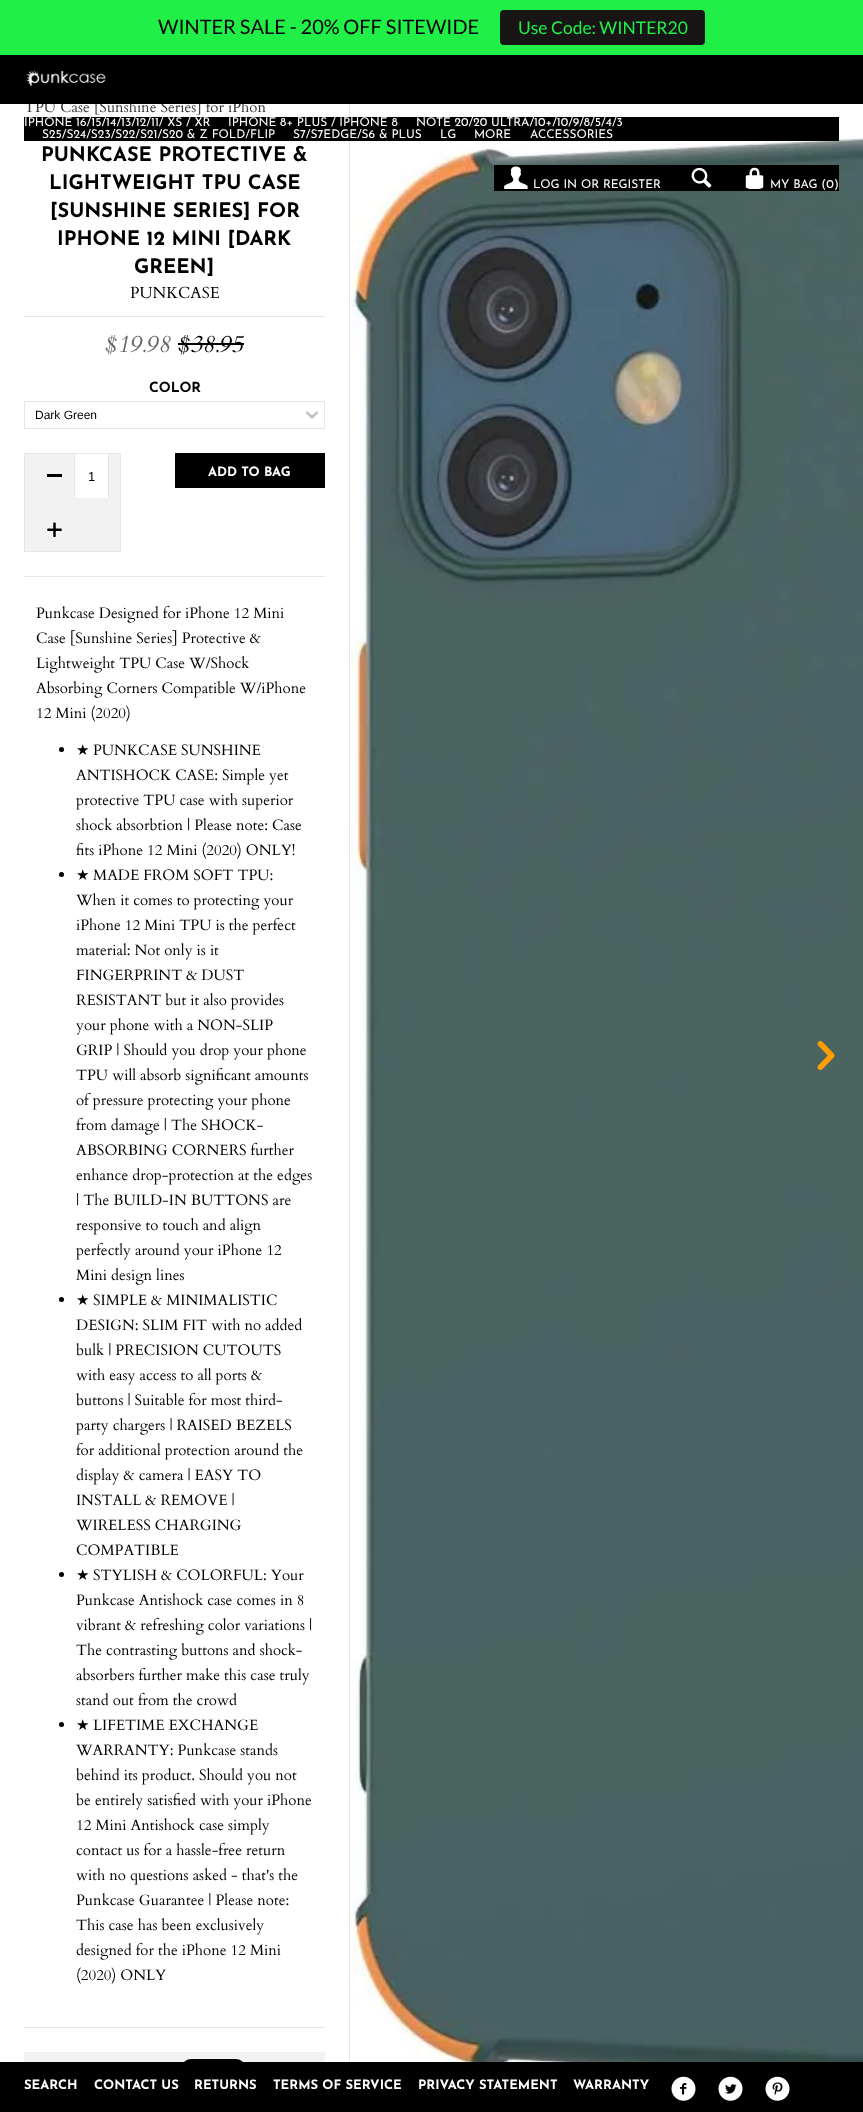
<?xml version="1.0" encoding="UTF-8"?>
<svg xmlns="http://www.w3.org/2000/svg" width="863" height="2112">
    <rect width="100%" height="100%" fill="#FFFFFF"/>
    <rect x="0" y="0" width="863" height="55" fill="#20EF48"/>
    <text x="158" y="34" font-family="Lato" font-size="20" fill="#000000">WINTER SALE - 20% OFF SITEWIDE</text>
    <rect x="500" y="10" width="205" height="35" rx="4" fill="#171515"/>
    <text x="518" y="34" font-family="Lato" font-size="17.5" fill="#20EF48">Use Code: WINTER20</text>
    <rect x="349" y="104" width="1" height="1958" fill="#E6E6E6"/>
    <text x="24" y="112" font-family="Cardo" font-size="15" fill="#333333">TPU Case [Sunshine Series] for iPhon</text>
    <text x="41" y="161" font-family="Josefin Sans" font-size="20" font-weight="700" fill="#000000">PUNKCASE PROTECTIVE &amp;</text>
    <text x="49" y="189" font-family="Josefin Sans" font-size="20" font-weight="700" fill="#000000">LIGHTWEIGHT TPU CASE</text>
    <text x="50" y="217" font-family="Josefin Sans" font-size="20" font-weight="700" fill="#000000">[SUNSHINE SERIES] FOR</text>
    <text x="57" y="245" font-family="Josefin Sans" font-size="20" font-weight="700" fill="#000000">IPHONE 12 MINI [DARK</text>
    <text x="134" y="273" font-family="Josefin Sans" font-size="20" font-weight="700" fill="#000000">GREEN]</text>
    <rect x="24" y="316" width="301" height="1" fill="#E6E6E6"/>
    <text x="130" y="298" font-family="Cardo" font-size="16" fill="#000000">PUNKCASE</text>
    <text x="105" y="352" font-family="Cardo" font-size="24" font-style="italic" fill="#666666">$19.98</text>
    <text x="178" y="352" font-family="Cardo" font-size="24" font-style="italic" fill="#000000">$38.95</text>
    <rect x="178" y="343" width="66" height="2" fill="#000000"/>
    <text x="149" y="392" font-family="Josefin Sans" font-size="14" font-weight="700" fill="#000000">COLOR</text>
    <image x="306" y="411" width="12" height="8" href="img_01.png"/>
    <rect x="24.5" y="401.5" width="300" height="27" fill="none" stroke="#E6E6E6"/>
    <text x="35" y="419" font-family="Liberation Sans" font-size="12" fill="#000000">Dark Green</text>
    <rect x="24.5" y="453.5" width="96" height="98" fill="#F2F2F2" stroke="#E6E6E6"/>
    <rect x="47" y="474" width="15" height="3" fill="#000000"/>
    <rect x="75" y="454" width="33" height="44" fill="#FFFFFF"/>
    <rect x="108" y="454" width="1" height="44" fill="#E6E6E6"/>
    <rect x="74" y="454" width="1" height="44" fill="#E6E6E6"/>
    <text x="88" y="481" font-family="Liberation Sans" font-size="13" fill="#000000">1</text>
    <image x="47" y="522" width="15" height="15" href="img_02.png"/>
    <rect x="175" y="453" width="150" height="35" fill="#000000"/>
    <text x="208" y="476" font-family="Josefin Sans" font-size="13" font-weight="700" fill="#FFFFFF">ADD TO BAG</text>
    <rect x="24" y="576" width="301" height="1" fill="#E6E6E6"/>
    <rect x="24" y="2027" width="301" height="1" fill="#E6E6E6"/>
    <text font-family="Cardo" font-size="15" fill="#000000">
        <tspan x="36" y="618">Punkcase Designed for iPhone 12 Mini</tspan>
        <tspan x="36" y="643">Case [Sunshine Series] Protective &amp;</tspan>
        <tspan x="36" y="668">Lightweight TPU Case W/Shock</tspan>
        <tspan x="36" y="693">Absorbing Corners Compatible W/iPhone</tspan>
        <tspan x="36" y="718">12 Mini (2020)</tspan>
    </text>
    <circle cx="61.5" cy="749.5" r="2.5" fill="#000000"/>
    <text x="76" y="755" font-family="DejaVu Sans" font-size="15" fill="#000000">★</text>
    <text x="93" y="755" font-family="Cardo" font-size="15" fill="#000000">PUNKCASE SUNSHINE</text>
    <text font-family="Cardo" font-size="15" fill="#000000">
        <tspan x="76" y="780">ANTISHOCK CASE: Simple yet</tspan>
        <tspan x="76" y="805">protective TPU case with superior</tspan>
        <tspan x="76" y="830">shock absorbtion | Please note: Case</tspan>
        <tspan x="76" y="855">fits iPhone 12 Mini (2020) ONLY!</tspan>
    </text>
    <circle cx="61.5" cy="874.5" r="2.5" fill="#000000"/>
    <text x="76" y="880" font-family="DejaVu Sans" font-size="15" fill="#000000">★</text>
    <text x="93" y="880" font-family="Cardo" font-size="15" fill="#000000">MADE FROM SOFT TPU:</text>
    <text font-family="Cardo" font-size="15" fill="#000000">
        <tspan x="76" y="905">When it comes to protecting your</tspan>
        <tspan x="76" y="930">iPhone 12 Mini TPU is the perfect</tspan>
        <tspan x="76" y="955">material: Not only is it</tspan>
        <tspan x="76" y="980">FINGERPRINT &amp; DUST</tspan>
        <tspan x="76" y="1005">RESISTANT but it also provides</tspan>
        <tspan x="76" y="1030">your phone with a NON-SLIP</tspan>
        <tspan x="76" y="1055">GRIP | Should you drop your phone</tspan>
        <tspan x="76" y="1080">TPU will absorb significant amounts</tspan>
        <tspan x="76" y="1105">of pressure protecting your phone</tspan>
        <tspan x="76" y="1130">from damage | The SHOCK-</tspan>
        <tspan x="76" y="1155">ABSORBING CORNERS further</tspan>
        <tspan x="76" y="1180">enhance drop-protection at the edges</tspan>
        <tspan x="76" y="1205">| The BUILD-IN BUTTONS are</tspan>
        <tspan x="76" y="1230">responsive to touch and align</tspan>
        <tspan x="76" y="1255">perfectly around your iPhone 12</tspan>
        <tspan x="76" y="1280">Mini design lines</tspan>
    </text>
    <circle cx="61.5" cy="1299.5" r="2.5" fill="#000000"/>
    <text x="76" y="1305" font-family="DejaVu Sans" font-size="15" fill="#000000">★</text>
    <text x="93" y="1305" font-family="Cardo" font-size="15" fill="#000000">SIMPLE &amp; MINIMALISTIC</text>
    <text font-family="Cardo" font-size="15" fill="#000000">
        <tspan x="76" y="1330">DESIGN: SLIM FIT with no added</tspan>
        <tspan x="76" y="1355">bulk | PRECISION CUTOUTS</tspan>
        <tspan x="76" y="1380">with easy access to all ports &amp;</tspan>
        <tspan x="76" y="1405">buttons | Suitable for most third-</tspan>
        <tspan x="76" y="1430">party chargers | RAISED BEZELS</tspan>
        <tspan x="76" y="1455">for additional protection around the</tspan>
        <tspan x="76" y="1480">display &amp; camera | EASY TO</tspan>
        <tspan x="76" y="1505">INSTALL &amp; REMOVE |</tspan>
        <tspan x="76" y="1530">WIRELESS CHARGING</tspan>
        <tspan x="76" y="1555">COMPATIBLE</tspan>
    </text>
    <circle cx="61.5" cy="1574.5" r="2.5" fill="#000000"/>
    <text x="76" y="1580" font-family="DejaVu Sans" font-size="15" fill="#000000">★</text>
    <text x="93" y="1580" font-family="Cardo" font-size="15" fill="#000000">STYLISH &amp; COLORFUL: Your</text>
    <text font-family="Cardo" font-size="15" fill="#000000">
        <tspan x="76" y="1605">Punkcase Antishock case comes in 8</tspan>
        <tspan x="76" y="1630">vibrant &amp; refreshing color variations |</tspan>
        <tspan x="76" y="1655">The contrasting buttons and shock-</tspan>
        <tspan x="76" y="1680">absorbers further make this case truly</tspan>
        <tspan x="76" y="1705">stand out from the crowd</tspan>
    </text>
    <circle cx="61.5" cy="1724.5" r="2.5" fill="#000000"/>
    <text x="76" y="1730" font-family="DejaVu Sans" font-size="15" fill="#000000">★</text>
    <text x="93" y="1730" font-family="Cardo" font-size="15" fill="#000000">LIFETIME EXCHANGE</text>
    <text font-family="Cardo" font-size="15" fill="#000000">
        <tspan x="76" y="1755">WARRANTY: Punkcase stands</tspan>
        <tspan x="76" y="1780">behind its product. Should you not</tspan>
        <tspan x="76" y="1805">be entirely satisfied with your iPhone</tspan>
        <tspan x="76" y="1830">12 Mini Antishock case simply</tspan>
        <tspan x="76" y="1855">contact us for a hassle-free return</tspan>
        <tspan x="76" y="1880">with no questions asked - that's the</tspan>
        <tspan x="76" y="1905">Punkcase Guarantee | Please note:</tspan>
        <tspan x="76" y="1930">This case has been exclusively</tspan>
        <tspan x="76" y="1955">designed for the iPhone 12 Mini</tspan>
        <tspan x="76" y="1980">(2020) ONLY</tspan>
    </text>
    <rect x="24" y="2052" width="301" height="10" fill="#F2F2F2"/>
    <image x="184" y="2059" width="59" height="3" href="img_03.png"/>
    <rect x="0" y="55" width="863" height="49" fill="#000000"/>
    <image x="26" y="69" width="80" height="18" href="img_04.png"/>
    <image x="350" y="137" width="513" height="1925" href="img_08.png"/>
    <rect x="24" y="117" width="815" height="24" fill="#000000"/>
    <text x="24" y="126" font-family="Josefin Sans" font-size="12" fill="#FFFFFF">IPHONE 16/15/14/13/12/11/ XS / XR</text>
    <text x="228" y="126" font-family="Josefin Sans" font-size="12" fill="#FFFFFF">IPHONE 8+ PLUS / IPHONE 8</text>
    <text x="416" y="126" font-family="Josefin Sans" font-size="12" fill="#FFFFFF">NOTE 20/20 ULTRA/10+/10/9/8/5/4/3</text>
    <text x="42" y="138" font-family="Josefin Sans" font-size="12" fill="#FFFFFF">S25/S24/S23/S22/S21/S20 &amp; Z FOLD/FLIP</text>
    <text x="293" y="138" font-family="Josefin Sans" font-size="12" fill="#FFFFFF">S7/S7EDGE/S6 &amp; PLUS</text>
    <text x="440" y="138" font-family="Josefin Sans" font-size="12" fill="#FFFFFF">LG</text>
    <text x="474" y="138" font-family="Josefin Sans" font-size="12" fill="#FFFFFF">MORE</text>
    <text x="530" y="138" font-family="Josefin Sans" font-size="12" fill="#FFFFFF">ACCESSORIES</text>
    <rect x="494" y="165" width="345" height="26" fill="#000000"/>
    <image x="504" y="166" width="24" height="23" href="img_05.png"/>
    <text x="533" y="188" font-family="Josefin Sans" font-size="12" fill="#FFFFFF">LOG IN OR REGISTER</text>
    <image x="691" y="167" width="21" height="21" href="img_06.png"/>
    <image x="745" y="167" width="19" height="22" href="img_07.png"/>
    <text x="770" y="188" font-family="Josefin Sans" font-size="12" fill="#FFFFFF">MY BAG (0</text>
    <text x="834" y="188" font-family="Josefin Sans" font-size="12" fill="#FFFFFF">)</text>
    <image x="817" y="1041" width="18" height="29" href="img_09.png"/>
    <rect x="0" y="2062" width="863" height="50" fill="#000000"/>
    <text x="24" y="2089" font-family="Josefin Sans" font-size="13" font-weight="700" fill="#FFFFFF">SEARCH</text>
    <text x="94" y="2089" font-family="Josefin Sans" font-size="13" font-weight="700" fill="#FFFFFF">CONTACT US</text>
    <text x="194" y="2089" font-family="Josefin Sans" font-size="13" font-weight="700" fill="#FFFFFF">RETURNS</text>
    <text x="273" y="2089" font-family="Josefin Sans" font-size="13" font-weight="700" fill="#FFFFFF">TERMS OF SERVICE</text>
    <text x="418" y="2089" font-family="Josefin Sans" font-size="13" font-weight="700" fill="#FFFFFF">PRIVACY STATEMENT</text>
    <text x="573" y="2089" font-family="Josefin Sans" font-size="13" font-weight="700" fill="#FFFFFF">WARRANTY</text>
    <image x="671" y="2076" width="25" height="25" href="img_10.png"/>
    <image x="718" y="2076" width="25" height="25" href="img_11.png"/>
    <image x="765" y="2076" width="25" height="25" href="img_12.png"/>
</svg>
